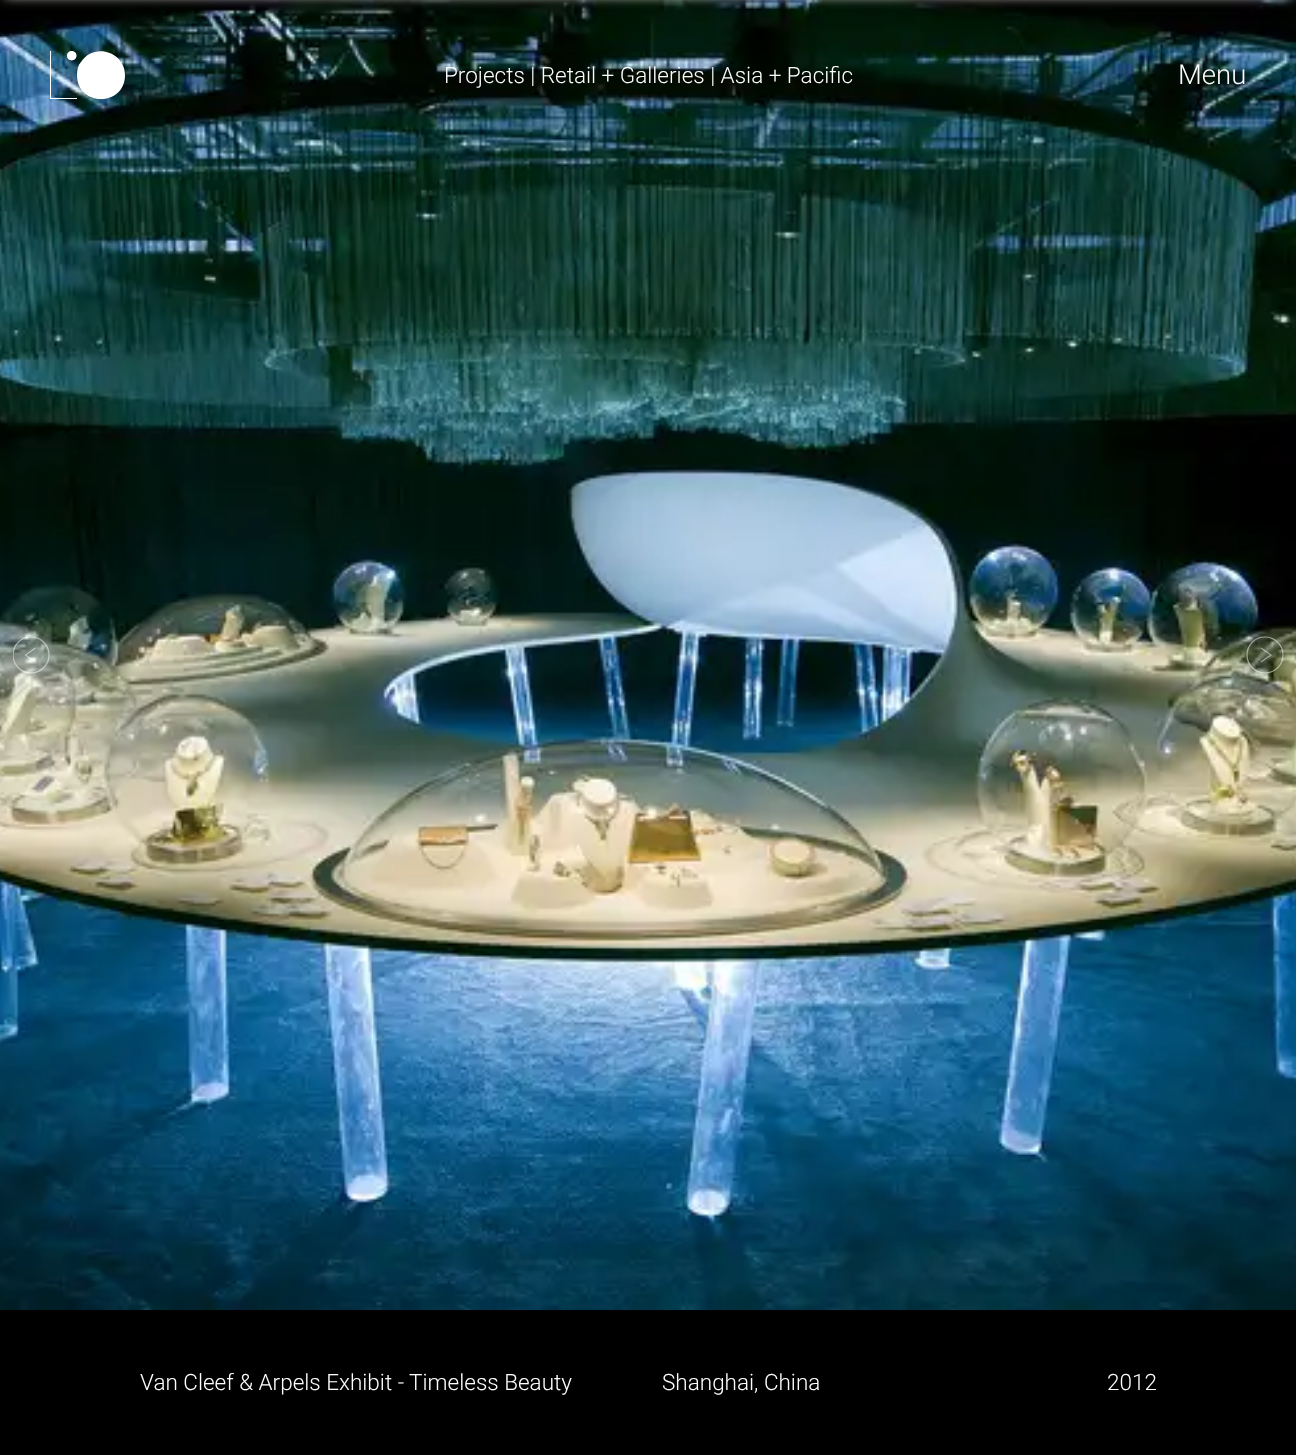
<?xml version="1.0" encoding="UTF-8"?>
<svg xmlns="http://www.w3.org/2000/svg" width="1296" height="1455">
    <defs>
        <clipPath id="clip1"><rect x="13" y="636" width="37" height="38"/></clipPath>
        <filter id="blur1" x="-50%" y="-200%" width="200%" height="500%"><feGaussianBlur stdDeviation="6"/></filter>
    </defs>
    <rect width="100%" height="100%" fill="#000000"/>
    <image x="0" y="0" width="1296" height="1310" href="img_01.png"/>
    <path d="M 35.5 648 L 25.5 655 L 35.5 662" fill="none" stroke="#FFFFFF" stroke-opacity="0.5" stroke-width="1.2"/>
    <g clip-path="url(#clip1)">
        <circle cx="31" cy="655" r="18" fill="none" stroke="#FFFFFF" stroke-opacity="0.5" stroke-width="1.2"/>
    </g>
    <path d="M 1261 648 L 1271 655 L 1261 662" fill="none" stroke="#FFFFFF" stroke-opacity="0.5" stroke-width="1.2"/>
    <circle cx="1265" cy="655" r="18" fill="none" stroke="#FFFFFF" stroke-opacity="0.5" stroke-width="1.2"/>
    <text x="444" y="83" font-family="Roboto" font-size="22.5" font-weight="300" fill="#FFFFFF">Projects | Retail + Galleries | Asia + Pacific</text>
    <text x="140" y="1390" font-family="Roboto" font-size="22.5" font-weight="300" fill="#FFFFFF">Van Cleef &amp; Arpels Exhibit - Timeless Beauty</text>
    <text x="662" y="1390" font-family="Roboto" font-size="22.5" font-weight="300" fill="#FFFFFF">Shanghai, China</text>
    <text x="1107" y="1390" font-family="Roboto" font-size="22.5" font-weight="300" fill="#FFFFFF">2012</text>
    <rect x="5" y="-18" width="1286" height="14" fill="#FFFFFF" filter="url(#blur1)"/>
    <path d="M 77 99 H 50 V 51 H 51 V 98 H 77 Z" fill="#FFFFFF"/>
    <path d="M 125 75 C 125 107 77 107 77 75 C 77 70 78 65 81 62 C 94 42 125 52 125 75 M 76.5 55.5 C 76.5 62 67 62 67 55.5 C 67 49.5 76.5 49.5 76.5 55.5" fill="#FFFFFF"/>
    <text x="1178" y="84" font-family="Roboto" font-size="27.5" font-weight="300" fill="#FFFFFF">Menu</text>
</svg>
